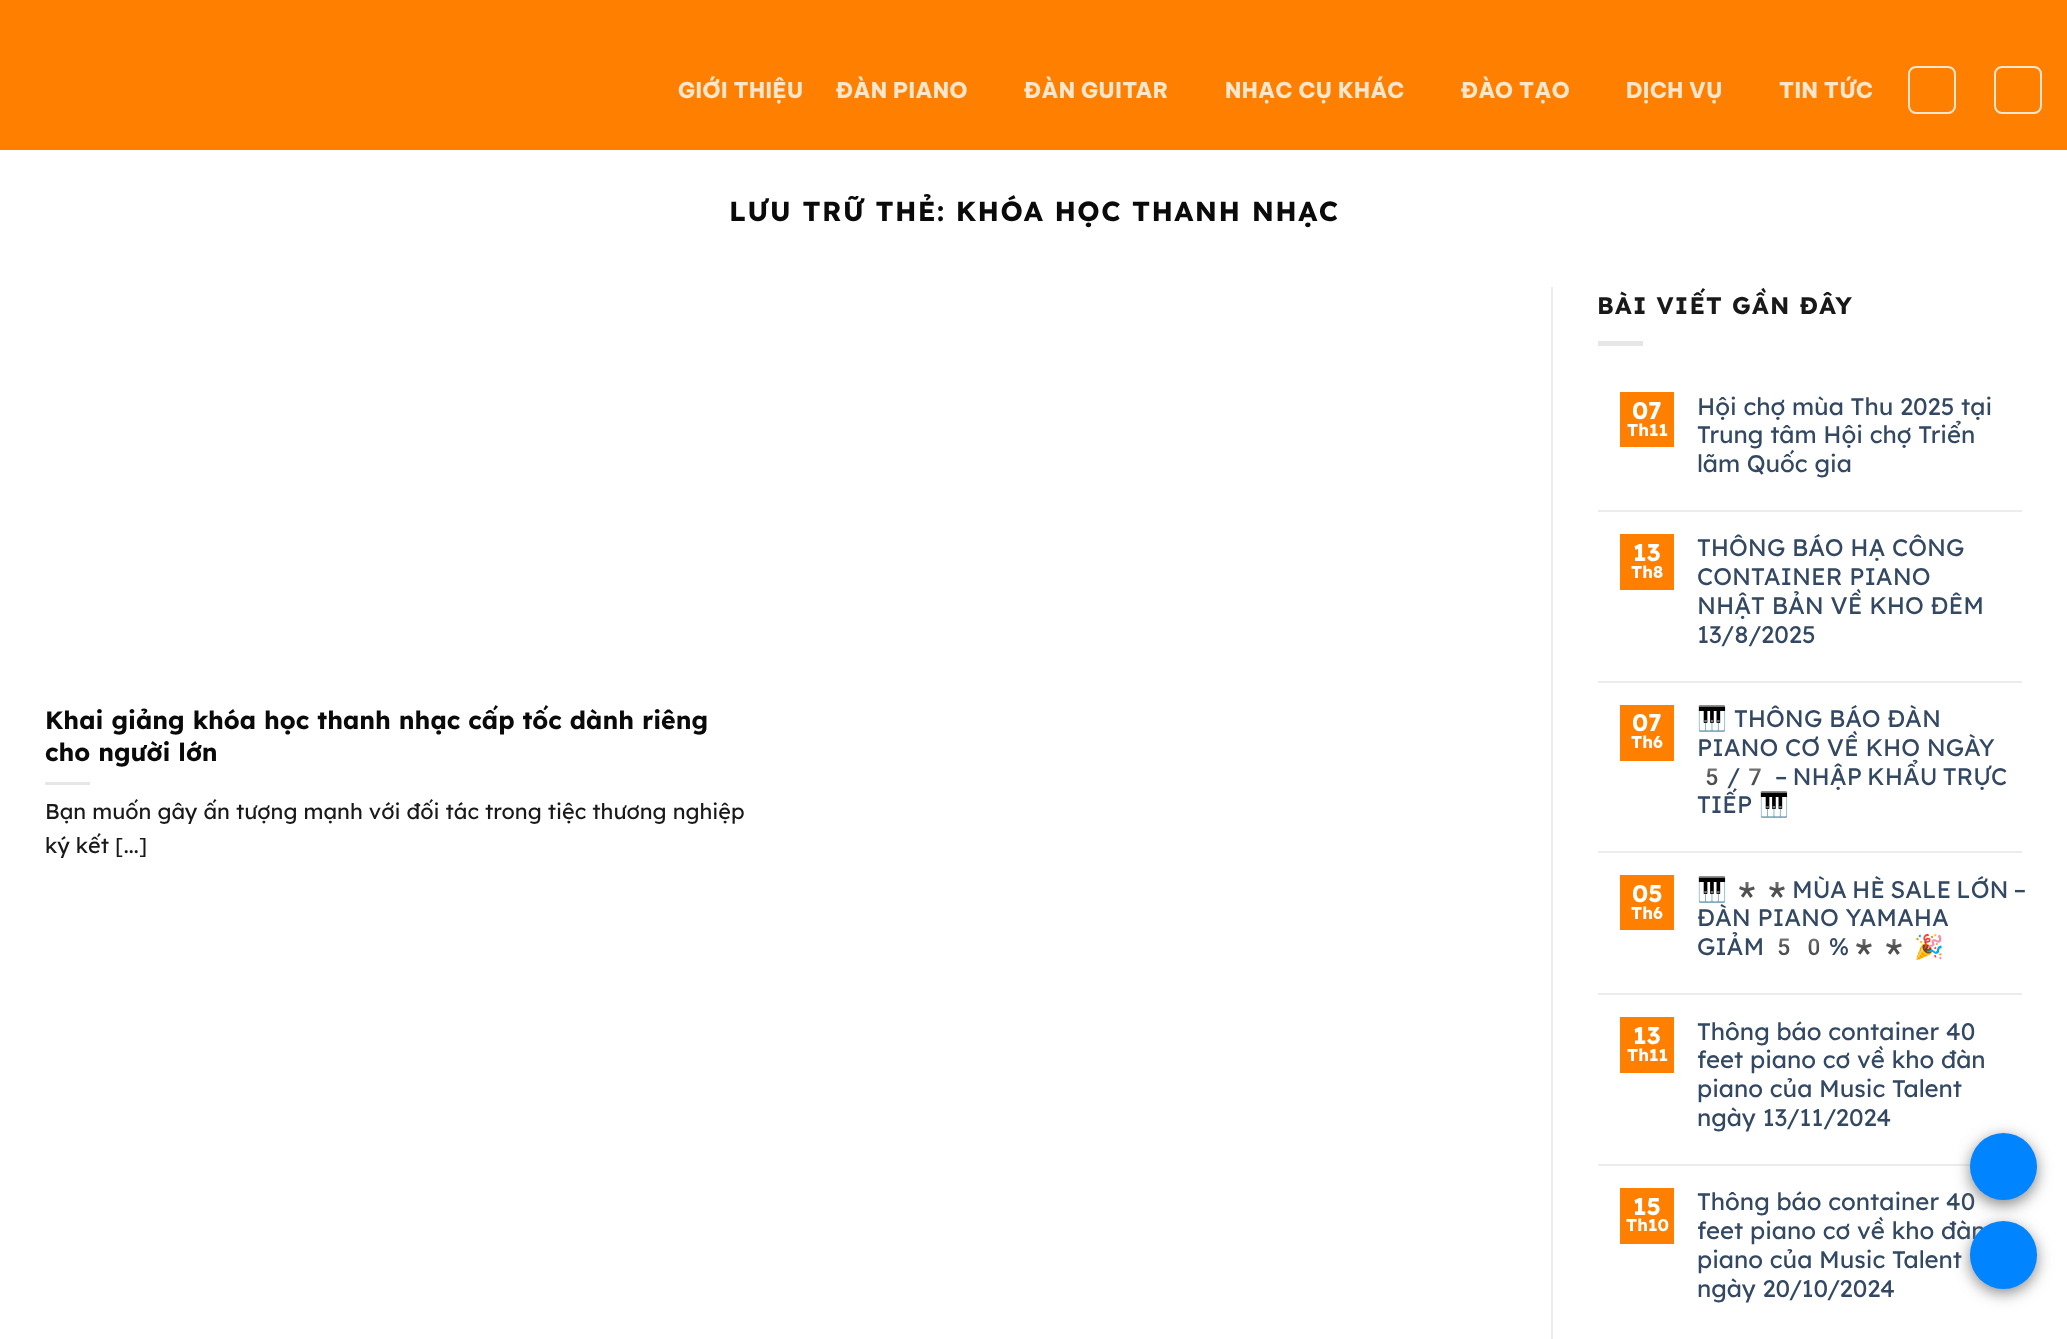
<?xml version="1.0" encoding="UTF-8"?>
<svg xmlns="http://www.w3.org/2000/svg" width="2067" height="1339">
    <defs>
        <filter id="blur1" x="-50%" y="-200%" width="200%" height="500%"><feGaussianBlur stdDeviation="7.5"/></filter>
    </defs>
    <rect width="100%" height="100%" fill="#FFFFFF"/>
    <rect x="0" y="0" width="2067" height="150" fill="#FF8000"/>
    <text x="678" y="98" font-family="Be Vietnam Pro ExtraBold" font-size="21.6" font-weight="800" letter-spacing="0.5" fill="#FFE6CC">GIỚI THIỆU</text>
    <text x="836" y="98" font-family="Be Vietnam Pro ExtraBold" font-size="21.6" font-weight="800" letter-spacing="0.5" fill="#FFE6CC">ĐÀN PIANO</text>
    <text x="1024" y="98" font-family="Be Vietnam Pro ExtraBold" font-size="21.6" font-weight="800" letter-spacing="0.5" fill="#FFE6CC">ĐÀN GUITAR</text>
    <text x="1225" y="98" font-family="Be Vietnam Pro ExtraBold" font-size="21.6" font-weight="800" letter-spacing="0.5" fill="#FFE6CC">NHẠC CỤ KHÁC</text>
    <text x="1461" y="98" font-family="Be Vietnam Pro ExtraBold" font-size="21.6" font-weight="800" letter-spacing="0.5" fill="#FFE6CC">ĐÀO TẠO</text>
    <text x="1626" y="98" font-family="Be Vietnam Pro ExtraBold" font-size="21.6" font-weight="800" letter-spacing="0.5" fill="#FFE6CC">DỊCH VỤ</text>
    <text x="1779" y="98" font-family="Be Vietnam Pro ExtraBold" font-size="21.6" font-weight="800" letter-spacing="0.5" fill="#FFE6CC">TIN TỨC</text>
    <rect x="1909" y="67" width="46" height="46" rx="7" fill="none" stroke="#FFE6CC" stroke-width="2"/>
    <rect x="1995" y="67" width="46" height="46" rx="7" fill="none" stroke="#FFE6CC" stroke-width="2"/>
    <text x="729" y="221" font-family="Lexend" font-size="27.6" font-weight="700" letter-spacing="1.4" fill="#0A0A0A">LƯU TRỮ THẺ: KHÓA HỌC THANH NHẠC</text>
    <text font-family="Lexend" font-size="24.85" font-weight="700" fill="#0A0A0A">
        <tspan x="45" y="729">Khai giảng khóa học thanh nhạc cấp tốc dành riêng</tspan>
        <tspan x="45" y="761">cho người lớn</tspan>
    </text>
    <rect x="45" y="782" width="45" height="3" fill="#E6E6E6"/>
    <text font-family="Lexend" font-size="21.6" fill="#191919">
        <tspan x="45" y="819">Bạn muốn gây ấn tượng mạnh với đối tác trong tiệc thương nghiệp</tspan>
        <tspan x="45" y="853">ký kết [...]</tspan>
    </text>
    <rect x="1551" y="287" width="2" height="1052" fill="#ECECEC"/>
    <text x="1597" y="314" font-family="Lexend" font-size="24" font-weight="700" letter-spacing="1.25" fill="#191919">BÀI VIẾT GẦN ĐÂY</text>
    <rect x="1598" y="341" width="45" height="5" fill="#E6E6E6"/>
    <rect x="1620" y="392" width="54" height="55" fill="#FF8000"/>
    <text x="1632" y="419" font-family="Lexend" font-size="24" font-weight="700" fill="#FFFFFF">07</text>
    <text x="1627" y="436" font-family="Lexend" font-size="17" font-weight="700" fill="#FFFFFF">Th11</text>
    <text font-family="Lexend" font-size="24" fill="#334862">
        <tspan x="1697" y="415">Hội chợ mùa Thu 2025 tại</tspan>
        <tspan x="1697" y="443">Trung tâm Hội chợ Triển</tspan>
        <tspan x="1697" y="472">lãm Quốc gia</tspan>
    </text>
    <rect x="1598" y="510" width="424" height="2" fill="#ECECEC"/>
    <rect x="1620" y="534" width="54" height="56" fill="#FF8000"/>
    <text x="1633" y="561" font-family="Lexend" font-size="24" font-weight="700" fill="#FFFFFF">13</text>
    <text x="1631" y="578" font-family="Lexend" font-size="17" font-weight="700" fill="#FFFFFF">Th8</text>
    <text font-family="Lexend" font-size="24" fill="#334862">
        <tspan x="1697" y="556">THÔNG BÁO HẠ CÔNG</tspan>
        <tspan x="1697" y="585">CONTAINER PIANO</tspan>
        <tspan x="1697" y="614">NHẬT BẢN VỀ KHO ĐÊM</tspan>
        <tspan x="1697" y="643">13/8/2025</tspan>
    </text>
    <rect x="1598" y="681" width="424" height="2" fill="#ECECEC"/>
    <rect x="1620" y="705" width="54" height="56" fill="#FF8000"/>
    <text x="1632" y="731" font-family="Lexend" font-size="24" font-weight="700" fill="#FFFFFF">07</text>
    <text x="1631" y="748" font-family="Lexend" font-size="17" font-weight="700" fill="#FFFFFF">Th6</text>
    <text x="1697" y="727" font-family="Noto Color Emoji" font-size="24" fill="#334862">🎹</text>
    <text x="1734" y="727" font-family="Lexend" font-size="24" fill="#334862">THÔNG BÁO ĐÀN</text>
    <text x="1697" y="756" font-family="Lexend" font-size="24" fill="#334862">PIANO CƠ VỀ KHO NGÀY</text>
    <text x="1697" y="785" font-family="Noto Color Emoji" font-size="24" fill="#334862">5</text>
    <text x="1727" y="785" font-family="Lexend" font-size="24" fill="#334862">/</text>
    <text x="1740" y="785" font-family="Noto Color Emoji" font-size="24" fill="#334862">7</text>
    <text x="1775" y="785" word-spacing="-1.5" font-family="Lexend" font-size="24" fill="#334862">– NHẬP KHẨU TRỰC</text>
    <text x="1697" y="813" font-family="Lexend" font-size="24" fill="#334862">TIẾP</text>
    <text x="1759" y="813" font-family="Noto Color Emoji" font-size="24" fill="#334862">🎹</text>
    <rect x="1598" y="851" width="424" height="2" fill="#ECECEC"/>
    <rect x="1620" y="875" width="54" height="55" fill="#FF8000"/>
    <text x="1632" y="902" font-family="Lexend" font-size="24" font-weight="700" fill="#FFFFFF">05</text>
    <text x="1631" y="919" font-family="Lexend" font-size="17" font-weight="700" fill="#FFFFFF">Th6</text>
    <text x="1697" y="898" font-family="Noto Color Emoji" font-size="24" fill="#334862">🎹</text>
    <text x="1732" y="898" font-family="Noto Color Emoji" font-size="24" fill="#334862">**</text>
    <text x="1792" y="898" word-spacing="-1.5" font-family="Lexend" font-size="24" fill="#334862">MÙA HÈ SALE LỚN –</text>
    <text font-family="Lexend" font-size="24" fill="#334862">
        <tspan x="1697" y="926">ĐÀN PIANO YAMAHA</tspan>
        <tspan x="1697" y="955">GIẢM</tspan>
    </text>
    <text x="1769" y="955" font-family="Noto Color Emoji" font-size="24" fill="#334862">50</text>
    <text x="1829" y="955" font-family="Lexend" font-size="24" fill="#334862">%</text>
    <text x="1849" y="955" font-family="Noto Color Emoji" font-size="24" fill="#334862">**</text>
    <text x="1914" y="955" font-family="Noto Color Emoji" font-size="24" fill="#334862">🎉</text>
    <rect x="1598" y="993" width="424" height="2" fill="#ECECEC"/>
    <rect x="1620" y="1017" width="54" height="56" fill="#FF8000"/>
    <text x="1633" y="1044" font-family="Lexend" font-size="24" font-weight="700" fill="#FFFFFF">13</text>
    <text x="1627" y="1061" font-family="Lexend" font-size="17" font-weight="700" fill="#FFFFFF">Th11</text>
    <text font-family="Lexend" font-size="24" fill="#334862">
        <tspan x="1697" y="1040">Thông báo container 40</tspan>
        <tspan x="1697" y="1068">feet piano cơ về kho đàn</tspan>
        <tspan x="1697" y="1097">piano của Music Talent</tspan>
        <tspan x="1697" y="1126">ngày 13/11/2024</tspan>
    </text>
    <rect x="1598" y="1164" width="373" height="2" fill="#ECECEC"/>
    <rect x="1620" y="1188" width="54" height="56" fill="#FF8000"/>
    <text x="1633" y="1215" font-family="Lexend" font-size="24" font-weight="700" fill="#FFFFFF">15</text>
    <text x="1626" y="1231" font-family="Lexend" font-size="17" font-weight="700" fill="#FFFFFF">Th10</text>
    <text font-family="Lexend" font-size="24" fill="#334862">
        <tspan x="1697" y="1210">Thông báo container 40</tspan>
        <tspan x="1697" y="1239">feet piano cơ về kho đàn</tspan>
        <tspan x="1697" y="1268">piano của Music Talent</tspan>
        <tspan x="1697" y="1297">ngày 20/10/2024</tspan>
    </text>
    <rect x="1970" y="1137" width="67" height="68" rx="33.5" fill="#888888" filter="url(#blur1)"/>
    <circle cx="2003.5" cy="1166.5" r="33.5" fill="#0084FF"/>
    <rect x="1970" y="1226" width="67" height="67" rx="33.5" fill="#888888" filter="url(#blur1)"/>
    <rect x="1970" y="1221" width="67" height="68" rx="33.5" fill="#0084FF"/>
</svg>
